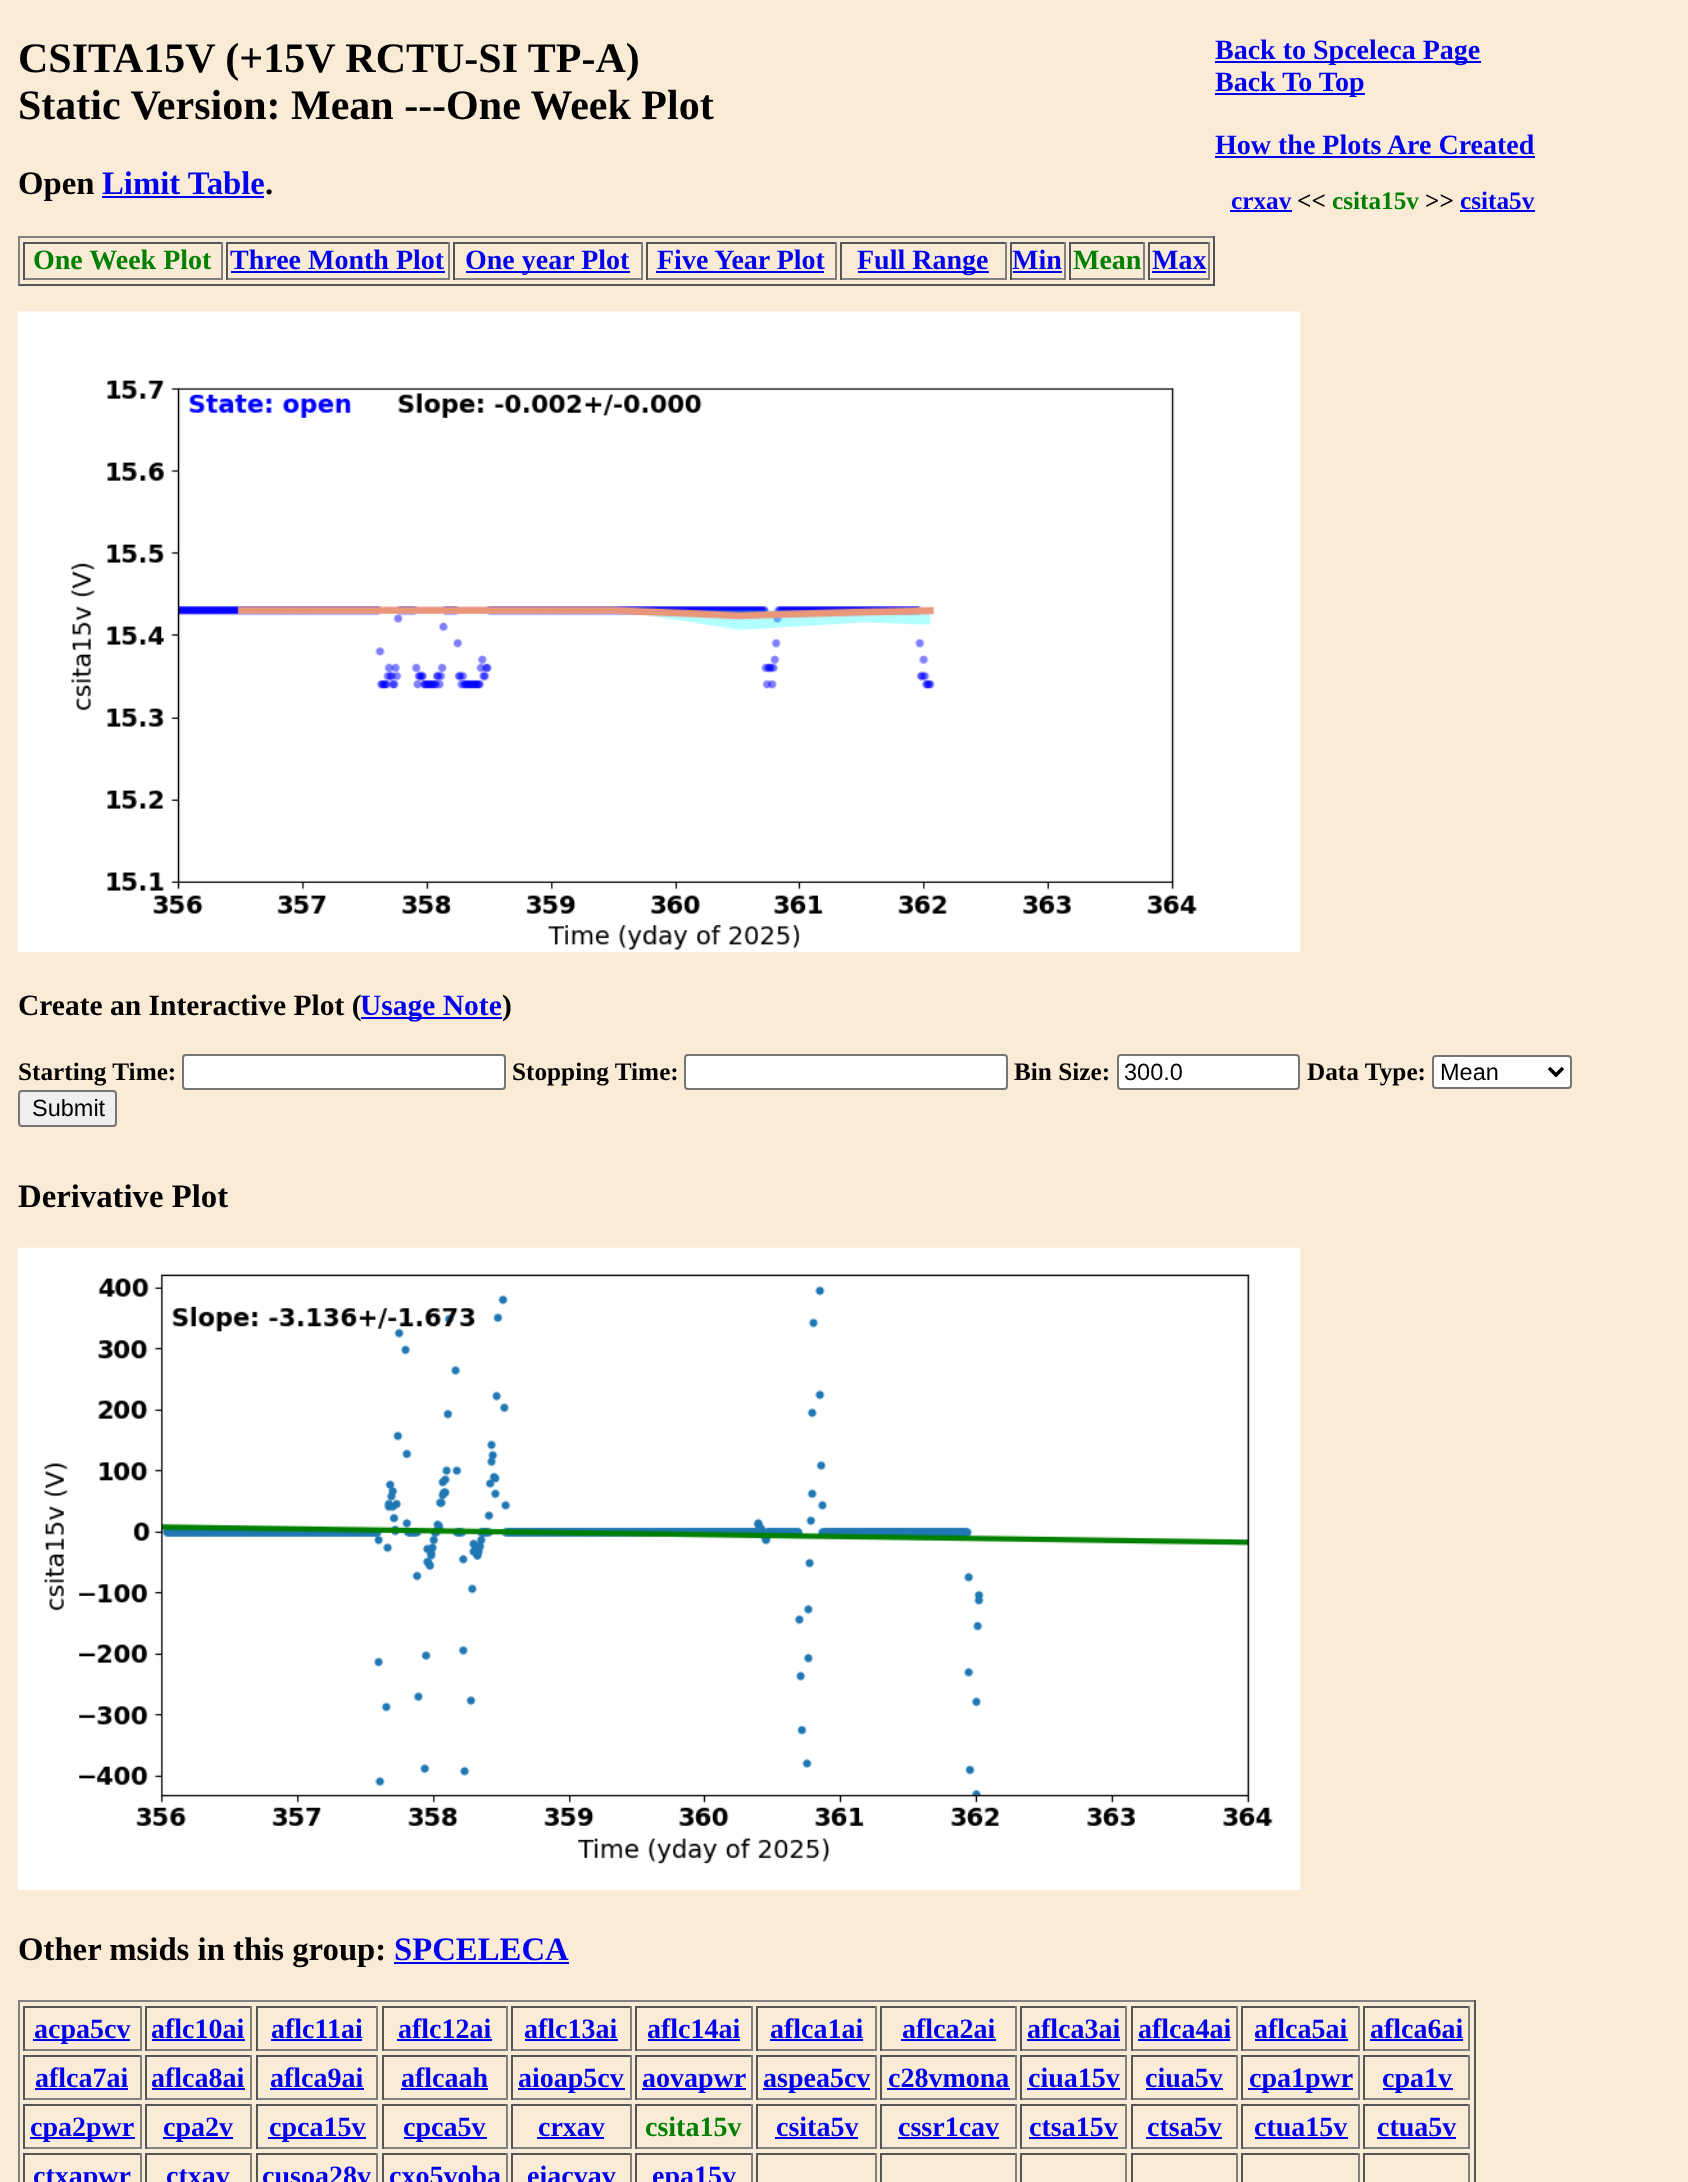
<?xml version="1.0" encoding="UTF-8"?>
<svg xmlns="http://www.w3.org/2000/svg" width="1688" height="2182">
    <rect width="100%" height="100%" fill="#FAEBD7"/>
    <rect x="1215" y="61" width="266" height="2" fill="#0000EE"/>
    <text x="1215" y="59" font-family="Liberation Serif" font-size="28" font-weight="700" fill="#0000EE">Back to Spceleca Page</text>
    <rect x="1215" y="93" width="150" height="2" fill="#0000EE"/>
    <text x="1215" y="91" font-family="Liberation Serif" font-size="28" font-weight="700" fill="#0000EE">Back To Top</text>
    <text x="1215" y="154" font-family="Liberation Serif" font-size="28" font-weight="700" fill="#0000EE">How the Plots Are Created</text>
    <rect x="1215" y="156" width="320" height="2" fill="#0000EE"/>
    <text x="1231" y="209" font-family="Liberation Serif" font-size="25.25" font-weight="700" fill="#0000EE">crxav</text>
    <rect x="1230" y="210" width="62" height="2" fill="#0000EE"/>
    <text x="1297" y="209" font-family="Liberation Serif" font-size="25.25" font-weight="700" fill="#000000">&lt;&lt;</text>
    <text x="1332" y="209" font-family="Liberation Serif" font-size="25.25" font-weight="700" fill="#008000">csita15v</text>
    <text x="1425" y="209" font-family="Liberation Serif" font-size="25.25" font-weight="700" fill="#000000">&gt;&gt;</text>
    <text x="1460" y="209" font-family="Liberation Serif" font-size="25.25" font-weight="700" fill="#0000EE">csita5v</text>
    <rect x="1460" y="210" width="75" height="2" fill="#0000EE"/>
    <text font-family="Liberation Serif" font-size="42" font-weight="700" fill="#000000">
        <tspan x="18" y="72">CSITA15V (+15V RCTU-SI TP-A)</tspan>
        <tspan x="18" y="119">Static Version: Mean ---One Week Plot</tspan>
    </text>
    <text x="18" y="194" font-family="Liberation Serif" font-size="32.75" font-weight="700" fill="#000000">Open</text>
    <text x="102" y="194" font-family="Liberation Serif" font-size="32.75" font-weight="700" fill="#0000EE">Limit Table</text>
    <rect x="102" y="196" width="162" height="2" fill="#0000EE"/>
    <text x="265" y="194" font-family="Liberation Serif" font-size="32.75" font-weight="700" fill="#000000">.</text>
    <rect x="18" y="236" width="1197" height="2" fill="#808080"/>
    <rect x="1213" y="236" width="2" height="49" fill="#555555"/>
    <rect x="18" y="284" width="1197" height="2" fill="#555555"/>
    <rect x="18" y="236" width="2" height="49" fill="#808080"/>
    <rect x="23" y="242" width="199" height="2" fill="#555555"/>
    <rect x="221" y="242" width="2" height="38" fill="#808080"/>
    <rect x="23" y="278" width="199" height="2" fill="#808080"/>
    <rect x="23" y="242" width="2" height="38" fill="#555555"/>
    <text x="33" y="269" font-family="Liberation Serif" font-size="28" font-weight="700" fill="#008000">One Week Plot</text>
    <rect x="226" y="242" width="224" height="2" fill="#555555"/>
    <rect x="448" y="242" width="2" height="38" fill="#808080"/>
    <rect x="226" y="278" width="224" height="2" fill="#808080"/>
    <rect x="226" y="242" width="2" height="38" fill="#555555"/>
    <text x="230" y="269" font-family="Liberation Serif" font-size="28" font-weight="700" fill="#0000EE">Three Month Plot</text>
    <rect x="231" y="271" width="214" height="2" fill="#0000EE"/>
    <rect x="453" y="242" width="189" height="2" fill="#555555"/>
    <rect x="641" y="242" width="2" height="38" fill="#808080"/>
    <rect x="453" y="278" width="189" height="2" fill="#808080"/>
    <rect x="453" y="242" width="2" height="38" fill="#555555"/>
    <rect x="466" y="271" width="164" height="2" fill="#0000EE"/>
    <text x="465" y="269" font-family="Liberation Serif" font-size="28" font-weight="700" fill="#0000EE">One year Plot</text>
    <rect x="646" y="242" width="191" height="2" fill="#555555"/>
    <rect x="835" y="242" width="2" height="38" fill="#808080"/>
    <rect x="646" y="278" width="191" height="2" fill="#808080"/>
    <rect x="646" y="242" width="2" height="38" fill="#555555"/>
    <text x="657" y="269" font-family="Liberation Serif" font-size="28" font-weight="700" fill="#0000EE">Five Year Plot</text>
    <rect x="656" y="271" width="168" height="2" fill="#0000EE"/>
    <rect x="840" y="242" width="166" height="2" fill="#555555"/>
    <rect x="1005" y="242" width="2" height="38" fill="#808080"/>
    <rect x="840" y="278" width="166" height="2" fill="#808080"/>
    <rect x="840" y="242" width="2" height="38" fill="#555555"/>
    <rect x="858" y="271" width="131" height="2" fill="#0000EE"/>
    <text x="857" y="269" font-family="Liberation Serif" font-size="28" font-weight="700" fill="#0000EE">Full Range</text>
    <rect x="1010" y="242" width="56" height="2" fill="#555555"/>
    <rect x="1064" y="242" width="2" height="38" fill="#808080"/>
    <rect x="1010" y="278" width="56" height="2" fill="#808080"/>
    <rect x="1010" y="242" width="2" height="38" fill="#555555"/>
    <text x="1012" y="269" font-family="Liberation Serif" font-size="28" font-weight="700" fill="#0000EE">Min</text>
    <rect x="1013" y="271" width="49" height="2" fill="#0000EE"/>
    <rect x="1069" y="242" width="76" height="2" fill="#555555"/>
    <rect x="1143" y="242" width="2" height="38" fill="#808080"/>
    <rect x="1069" y="278" width="76" height="2" fill="#808080"/>
    <rect x="1069" y="242" width="2" height="38" fill="#555555"/>
    <text x="1073" y="269" font-family="Liberation Serif" font-size="28" font-weight="700" fill="#008000">Mean</text>
    <rect x="1148" y="242" width="61" height="2" fill="#555555"/>
    <rect x="1208" y="242" width="2" height="38" fill="#808080"/>
    <rect x="1148" y="278" width="61" height="2" fill="#808080"/>
    <rect x="1148" y="242" width="2" height="38" fill="#555555"/>
    <text x="1152" y="269" font-family="Liberation Serif" font-size="28" font-weight="700" fill="#0000EE">Max</text>
    <rect x="1152" y="271" width="54" height="2" fill="#0000EE"/>
    <image x="17" y="311" width="1284" height="641" href="img_01.png"/>
    <text x="18" y="1015" font-family="Liberation Serif" font-size="29.5" font-weight="700" fill="#000000">Create an Interactive Plot (</text>
    <rect x="361" y="1017" width="141" height="2" fill="#0000EE"/>
    <text x="360" y="1015" font-family="Liberation Serif" font-size="29.5" font-weight="700" fill="#0000EE">Usage Note</text>
    <text x="502" y="1015" font-family="Liberation Serif" font-size="29.5" font-weight="700" fill="#000000">)</text>
    <text x="18" y="1080" font-family="Liberation Serif" font-size="25.25" font-weight="700" fill="#000000">Starting Time:</text>
    <rect x="183" y="1055" width="322" height="34" rx="3" fill="#FFFFFF" stroke="#767676" stroke-width="2"/>
    <text x="512" y="1080" font-family="Liberation Serif" font-size="25.25" font-weight="700" fill="#000000">Stopping Time:</text>
    <rect x="685" y="1055" width="322" height="34" rx="3" fill="#FFFFFF" stroke="#767676" stroke-width="2"/>
    <text x="1014" y="1080" font-family="Liberation Serif" font-size="25.25" font-weight="700" fill="#000000">Bin Size:</text>
    <rect x="1118" y="1055" width="181" height="34" rx="3" fill="#FFFFFF" stroke="#767676" stroke-width="2"/>
    <text x="1124" y="1080" font-family="Liberation Sans" font-size="23.5" fill="#000000">300.0</text>
    <text x="1307" y="1080" font-family="Liberation Serif" font-size="25.25" font-weight="700" fill="#000000">Data Type:</text>
    <rect x="1433" y="1056" width="138" height="32" rx="3" fill="#FFFFFF" stroke="#767676" stroke-width="2"/>
    <path d="M 1549 1068 L 1556 1075 L 1563 1068" fill="none" stroke="#000000" stroke-width="3.5"/>
    <text x="1440" y="1080" font-family="Liberation Sans" font-size="23.5" fill="#000000">Mean</text>
    <rect x="19" y="1091" width="97" height="35" rx="3" fill="#EFEFEF" stroke="#767676" stroke-width="2"/>
    <text x="32" y="1116" font-family="Liberation Sans" font-size="23.5" fill="#000000">Submit</text>
    <text x="18" y="1207" font-family="Liberation Serif" font-size="32.75" font-weight="700" fill="#000000">Derivative Plot</text>
    <image x="17" y="1247" width="1284" height="643" href="img_02.png"/>
    <text x="18" y="1960" font-family="Liberation Serif" font-size="32.75" font-weight="700" fill="#000000">Other msids in this group:</text>
    <text x="394" y="1960" font-family="Liberation Serif" font-size="32.75" font-weight="700" fill="#0000EE">SPCELECA</text>
    <rect x="394" y="1962" width="175" height="2" fill="#0000EE"/>
    <rect x="18" y="2000" width="1457" height="2" fill="#808080"/>
    <rect x="1474" y="2000" width="2" height="182" fill="#555555"/>
    <rect x="18" y="2000" width="2" height="182" fill="#808080"/>
    <rect x="23" y="2006" width="119" height="2" fill="#555555"/>
    <rect x="140" y="2006" width="2" height="45" fill="#808080"/>
    <rect x="23" y="2049" width="119" height="2" fill="#808080"/>
    <rect x="23" y="2006" width="2" height="45" fill="#555555"/>
    <rect x="33" y="2039" width="97" height="2" fill="#0000EE"/>
    <text x="34" y="2038" font-family="Liberation Serif" font-size="28" font-weight="700" fill="#0000EE">acpa5cv</text>
    <rect x="145" y="2006" width="107" height="2" fill="#555555"/>
    <rect x="250" y="2006" width="2" height="45" fill="#808080"/>
    <rect x="145" y="2049" width="107" height="2" fill="#808080"/>
    <rect x="145" y="2006" width="2" height="45" fill="#555555"/>
    <text x="151" y="2038" font-family="Liberation Serif" font-size="28" font-weight="700" fill="#0000EE">aflc10ai</text>
    <rect x="152" y="2039" width="93" height="2" fill="#0000EE"/>
    <rect x="256" y="2006" width="122" height="2" fill="#555555"/>
    <rect x="376" y="2006" width="2" height="45" fill="#808080"/>
    <rect x="256" y="2049" width="122" height="2" fill="#808080"/>
    <rect x="256" y="2006" width="2" height="45" fill="#555555"/>
    <text x="271" y="2038" font-family="Liberation Serif" font-size="28" font-weight="700" fill="#0000EE">aflc11ai</text>
    <rect x="271" y="2039" width="91" height="2" fill="#0000EE"/>
    <rect x="382" y="2006" width="126" height="2" fill="#555555"/>
    <rect x="506" y="2006" width="2" height="45" fill="#808080"/>
    <rect x="382" y="2049" width="126" height="2" fill="#808080"/>
    <rect x="382" y="2006" width="2" height="45" fill="#555555"/>
    <text x="398" y="2038" font-family="Liberation Serif" font-size="28" font-weight="700" fill="#0000EE">aflc12ai</text>
    <rect x="397" y="2039" width="95" height="2" fill="#0000EE"/>
    <rect x="511" y="2006" width="121" height="2" fill="#555555"/>
    <rect x="630" y="2006" width="2" height="45" fill="#808080"/>
    <rect x="511" y="2049" width="121" height="2" fill="#808080"/>
    <rect x="511" y="2006" width="2" height="45" fill="#555555"/>
    <text x="524" y="2038" font-family="Liberation Serif" font-size="28" font-weight="700" fill="#0000EE">aflc13ai</text>
    <rect x="525" y="2039" width="93" height="2" fill="#0000EE"/>
    <rect x="635" y="2006" width="118" height="2" fill="#555555"/>
    <rect x="751" y="2006" width="2" height="45" fill="#808080"/>
    <rect x="635" y="2049" width="118" height="2" fill="#808080"/>
    <rect x="635" y="2006" width="2" height="45" fill="#555555"/>
    <text x="647" y="2038" font-family="Liberation Serif" font-size="28" font-weight="700" fill="#0000EE">aflc14ai</text>
    <rect x="648" y="2039" width="92" height="2" fill="#0000EE"/>
    <rect x="756" y="2006" width="121" height="2" fill="#555555"/>
    <rect x="875" y="2006" width="2" height="45" fill="#808080"/>
    <rect x="756" y="2049" width="121" height="2" fill="#808080"/>
    <rect x="756" y="2006" width="2" height="45" fill="#555555"/>
    <text x="770" y="2038" font-family="Liberation Serif" font-size="28" font-weight="700" fill="#0000EE">aflca1ai</text>
    <rect x="770" y="2039" width="93" height="2" fill="#0000EE"/>
    <rect x="880" y="2006" width="137" height="2" fill="#555555"/>
    <rect x="1015" y="2006" width="2" height="45" fill="#808080"/>
    <rect x="880" y="2049" width="137" height="2" fill="#808080"/>
    <rect x="880" y="2006" width="2" height="45" fill="#555555"/>
    <text x="902" y="2038" font-family="Liberation Serif" font-size="28" font-weight="700" fill="#0000EE">aflca2ai</text>
    <rect x="901" y="2039" width="95" height="2" fill="#0000EE"/>
    <rect x="1020" y="2006" width="107" height="2" fill="#555555"/>
    <rect x="1125" y="2006" width="2" height="45" fill="#808080"/>
    <rect x="1020" y="2049" width="107" height="2" fill="#808080"/>
    <rect x="1020" y="2006" width="2" height="45" fill="#555555"/>
    <text x="1027" y="2038" font-family="Liberation Serif" font-size="28" font-weight="700" fill="#0000EE">aflca3ai</text>
    <rect x="1027" y="2039" width="93" height="2" fill="#0000EE"/>
    <rect x="1131" y="2006" width="106" height="2" fill="#555555"/>
    <rect x="1236" y="2006" width="2" height="45" fill="#808080"/>
    <rect x="1131" y="2049" width="106" height="2" fill="#808080"/>
    <rect x="1131" y="2006" width="2" height="45" fill="#555555"/>
    <text x="1138" y="2038" font-family="Liberation Serif" font-size="28" font-weight="700" fill="#0000EE">aflca4ai</text>
    <rect x="1138" y="2039" width="92" height="2" fill="#0000EE"/>
    <rect x="1241" y="2006" width="119" height="2" fill="#555555"/>
    <rect x="1358" y="2006" width="2" height="45" fill="#808080"/>
    <rect x="1241" y="2049" width="119" height="2" fill="#808080"/>
    <rect x="1241" y="2006" width="2" height="45" fill="#555555"/>
    <text x="1254" y="2038" font-family="Liberation Serif" font-size="28" font-weight="700" fill="#0000EE">aflca5ai</text>
    <rect x="1255" y="2039" width="93" height="2" fill="#0000EE"/>
    <rect x="1363" y="2006" width="107" height="2" fill="#555555"/>
    <rect x="1468" y="2006" width="2" height="45" fill="#808080"/>
    <rect x="1363" y="2049" width="107" height="2" fill="#808080"/>
    <rect x="1363" y="2006" width="2" height="45" fill="#555555"/>
    <text x="1370" y="2038" font-family="Liberation Serif" font-size="28" font-weight="700" fill="#0000EE">aflca6ai</text>
    <rect x="1370" y="2039" width="93" height="2" fill="#0000EE"/>
    <rect x="23" y="2055" width="119" height="2" fill="#555555"/>
    <rect x="140" y="2055" width="2" height="45" fill="#808080"/>
    <rect x="23" y="2098" width="119" height="2" fill="#808080"/>
    <rect x="23" y="2055" width="2" height="45" fill="#555555"/>
    <text x="35" y="2087" font-family="Liberation Serif" font-size="28" font-weight="700" fill="#0000EE">aflca7ai</text>
    <rect x="35" y="2088" width="93" height="2" fill="#0000EE"/>
    <rect x="145" y="2055" width="107" height="2" fill="#555555"/>
    <rect x="250" y="2055" width="2" height="45" fill="#808080"/>
    <rect x="145" y="2098" width="107" height="2" fill="#808080"/>
    <rect x="145" y="2055" width="2" height="45" fill="#555555"/>
    <text x="151" y="2087" font-family="Liberation Serif" font-size="28" font-weight="700" fill="#0000EE">aflca8ai</text>
    <rect x="152" y="2088" width="93" height="2" fill="#0000EE"/>
    <rect x="256" y="2055" width="122" height="2" fill="#555555"/>
    <rect x="376" y="2055" width="2" height="45" fill="#808080"/>
    <rect x="256" y="2098" width="122" height="2" fill="#808080"/>
    <rect x="256" y="2055" width="2" height="45" fill="#555555"/>
    <text x="270" y="2087" font-family="Liberation Serif" font-size="28" font-weight="700" fill="#0000EE">aflca9ai</text>
    <rect x="270" y="2088" width="94" height="2" fill="#0000EE"/>
    <rect x="382" y="2055" width="126" height="2" fill="#555555"/>
    <rect x="506" y="2055" width="2" height="45" fill="#808080"/>
    <rect x="382" y="2098" width="126" height="2" fill="#808080"/>
    <rect x="382" y="2055" width="2" height="45" fill="#555555"/>
    <text x="401" y="2087" font-family="Liberation Serif" font-size="28" font-weight="700" fill="#0000EE">aflcaah</text>
    <rect x="401" y="2088" width="87" height="2" fill="#0000EE"/>
    <rect x="511" y="2055" width="121" height="2" fill="#555555"/>
    <rect x="630" y="2055" width="2" height="45" fill="#808080"/>
    <rect x="511" y="2098" width="121" height="2" fill="#808080"/>
    <rect x="511" y="2055" width="2" height="45" fill="#555555"/>
    <rect x="518" y="2088" width="107" height="2" fill="#0000EE"/>
    <text x="518" y="2087" font-family="Liberation Serif" font-size="28" font-weight="700" fill="#0000EE">aioap5cv</text>
    <rect x="635" y="2055" width="118" height="2" fill="#555555"/>
    <rect x="751" y="2055" width="2" height="45" fill="#808080"/>
    <rect x="635" y="2098" width="118" height="2" fill="#808080"/>
    <rect x="635" y="2055" width="2" height="45" fill="#555555"/>
    <rect x="642" y="2088" width="104" height="2" fill="#0000EE"/>
    <text x="642" y="2087" font-family="Liberation Serif" font-size="28" font-weight="700" fill="#0000EE">aovapwr</text>
    <rect x="756" y="2055" width="121" height="2" fill="#555555"/>
    <rect x="875" y="2055" width="2" height="45" fill="#808080"/>
    <rect x="756" y="2098" width="121" height="2" fill="#808080"/>
    <rect x="756" y="2055" width="2" height="45" fill="#555555"/>
    <rect x="763" y="2088" width="107" height="2" fill="#0000EE"/>
    <text x="763" y="2087" font-family="Liberation Serif" font-size="28" font-weight="700" fill="#0000EE">aspea5cv</text>
    <rect x="880" y="2055" width="137" height="2" fill="#555555"/>
    <rect x="1015" y="2055" width="2" height="45" fill="#808080"/>
    <rect x="880" y="2098" width="137" height="2" fill="#808080"/>
    <rect x="880" y="2055" width="2" height="45" fill="#555555"/>
    <text x="888" y="2087" font-family="Liberation Serif" font-size="28" font-weight="700" fill="#0000EE">c28vmona</text>
    <rect x="887" y="2088" width="123" height="2" fill="#0000EE"/>
    <rect x="1020" y="2055" width="107" height="2" fill="#555555"/>
    <rect x="1125" y="2055" width="2" height="45" fill="#808080"/>
    <rect x="1020" y="2098" width="107" height="2" fill="#808080"/>
    <rect x="1020" y="2055" width="2" height="45" fill="#555555"/>
    <text x="1028" y="2087" font-family="Liberation Serif" font-size="28" font-weight="700" fill="#0000EE">ciua15v</text>
    <rect x="1027" y="2088" width="93" height="2" fill="#0000EE"/>
    <rect x="1131" y="2055" width="106" height="2" fill="#555555"/>
    <rect x="1236" y="2055" width="2" height="45" fill="#808080"/>
    <rect x="1131" y="2098" width="106" height="2" fill="#808080"/>
    <rect x="1131" y="2055" width="2" height="45" fill="#555555"/>
    <text x="1145" y="2087" font-family="Liberation Serif" font-size="28" font-weight="700" fill="#0000EE">ciua5v</text>
    <rect x="1146" y="2088" width="77" height="2" fill="#0000EE"/>
    <rect x="1241" y="2055" width="119" height="2" fill="#555555"/>
    <rect x="1358" y="2055" width="2" height="45" fill="#808080"/>
    <rect x="1241" y="2098" width="119" height="2" fill="#808080"/>
    <rect x="1241" y="2055" width="2" height="45" fill="#555555"/>
    <rect x="1248" y="2088" width="105" height="2" fill="#0000EE"/>
    <text x="1249" y="2087" font-family="Liberation Serif" font-size="28" font-weight="700" fill="#0000EE">cpa1pwr</text>
    <rect x="1363" y="2055" width="107" height="2" fill="#555555"/>
    <rect x="1468" y="2055" width="2" height="45" fill="#808080"/>
    <rect x="1363" y="2098" width="107" height="2" fill="#808080"/>
    <rect x="1363" y="2055" width="2" height="45" fill="#555555"/>
    <rect x="1383" y="2088" width="70" height="2" fill="#0000EE"/>
    <text x="1382" y="2087" font-family="Liberation Serif" font-size="28" font-weight="700" fill="#0000EE">cpa1v</text>
    <rect x="23" y="2104" width="119" height="2" fill="#555555"/>
    <rect x="140" y="2104" width="2" height="45" fill="#808080"/>
    <rect x="23" y="2147" width="119" height="2" fill="#808080"/>
    <rect x="23" y="2104" width="2" height="45" fill="#555555"/>
    <rect x="30" y="2137" width="105" height="2" fill="#0000EE"/>
    <text x="30" y="2136" font-family="Liberation Serif" font-size="28" font-weight="700" fill="#0000EE">cpa2pwr</text>
    <rect x="145" y="2104" width="107" height="2" fill="#555555"/>
    <rect x="250" y="2104" width="2" height="45" fill="#808080"/>
    <rect x="145" y="2147" width="107" height="2" fill="#808080"/>
    <rect x="145" y="2104" width="2" height="45" fill="#555555"/>
    <rect x="163" y="2137" width="70" height="2" fill="#0000EE"/>
    <text x="163" y="2136" font-family="Liberation Serif" font-size="28" font-weight="700" fill="#0000EE">cpa2v</text>
    <rect x="256" y="2104" width="122" height="2" fill="#555555"/>
    <rect x="376" y="2104" width="2" height="45" fill="#808080"/>
    <rect x="256" y="2147" width="122" height="2" fill="#808080"/>
    <rect x="256" y="2104" width="2" height="45" fill="#555555"/>
    <rect x="268" y="2137" width="98" height="2" fill="#0000EE"/>
    <text x="269" y="2136" font-family="Liberation Serif" font-size="28" font-weight="700" fill="#0000EE">cpca15v</text>
    <rect x="382" y="2104" width="126" height="2" fill="#555555"/>
    <rect x="506" y="2104" width="2" height="45" fill="#808080"/>
    <rect x="382" y="2147" width="126" height="2" fill="#808080"/>
    <rect x="382" y="2104" width="2" height="45" fill="#555555"/>
    <rect x="404" y="2137" width="83" height="2" fill="#0000EE"/>
    <text x="403" y="2136" font-family="Liberation Serif" font-size="28" font-weight="700" fill="#0000EE">cpca5v</text>
    <rect x="511" y="2104" width="121" height="2" fill="#555555"/>
    <rect x="630" y="2104" width="2" height="45" fill="#808080"/>
    <rect x="511" y="2147" width="121" height="2" fill="#808080"/>
    <rect x="511" y="2104" width="2" height="45" fill="#555555"/>
    <text x="538" y="2136" font-family="Liberation Serif" font-size="28" font-weight="700" fill="#0000EE">crxav</text>
    <rect x="537" y="2137" width="67" height="2" fill="#0000EE"/>
    <rect x="635" y="2104" width="118" height="2" fill="#555555"/>
    <rect x="751" y="2104" width="2" height="45" fill="#808080"/>
    <rect x="635" y="2147" width="118" height="2" fill="#808080"/>
    <rect x="635" y="2104" width="2" height="45" fill="#555555"/>
    <text x="645" y="2136" font-family="Liberation Serif" font-size="28" font-weight="700" fill="#008000">csita15v</text>
    <rect x="756" y="2104" width="121" height="2" fill="#555555"/>
    <rect x="875" y="2104" width="2" height="45" fill="#808080"/>
    <rect x="756" y="2147" width="121" height="2" fill="#808080"/>
    <rect x="756" y="2104" width="2" height="45" fill="#555555"/>
    <text x="776" y="2136" font-family="Liberation Serif" font-size="28" font-weight="700" fill="#0000EE">csita5v</text>
    <rect x="775" y="2137" width="83" height="2" fill="#0000EE"/>
    <rect x="880" y="2104" width="137" height="2" fill="#555555"/>
    <rect x="1015" y="2104" width="2" height="45" fill="#808080"/>
    <rect x="880" y="2147" width="137" height="2" fill="#808080"/>
    <rect x="880" y="2104" width="2" height="45" fill="#555555"/>
    <text x="898" y="2136" font-family="Liberation Serif" font-size="28" font-weight="700" fill="#0000EE">cssr1cav</text>
    <rect x="898" y="2137" width="101" height="2" fill="#0000EE"/>
    <rect x="1020" y="2104" width="107" height="2" fill="#555555"/>
    <rect x="1125" y="2104" width="2" height="45" fill="#808080"/>
    <rect x="1020" y="2147" width="107" height="2" fill="#808080"/>
    <rect x="1020" y="2104" width="2" height="45" fill="#555555"/>
    <text x="1029" y="2136" font-family="Liberation Serif" font-size="28" font-weight="700" fill="#0000EE">ctsa15v</text>
    <rect x="1029" y="2137" width="89" height="2" fill="#0000EE"/>
    <rect x="1131" y="2104" width="106" height="2" fill="#555555"/>
    <rect x="1236" y="2104" width="2" height="45" fill="#808080"/>
    <rect x="1131" y="2147" width="106" height="2" fill="#808080"/>
    <rect x="1131" y="2104" width="2" height="45" fill="#555555"/>
    <text x="1147" y="2136" font-family="Liberation Serif" font-size="28" font-weight="700" fill="#0000EE">ctsa5v</text>
    <rect x="1146" y="2137" width="76" height="2" fill="#0000EE"/>
    <rect x="1241" y="2104" width="119" height="2" fill="#555555"/>
    <rect x="1358" y="2104" width="2" height="45" fill="#808080"/>
    <rect x="1241" y="2147" width="119" height="2" fill="#808080"/>
    <rect x="1241" y="2104" width="2" height="45" fill="#555555"/>
    <text x="1254" y="2136" font-family="Liberation Serif" font-size="28" font-weight="700" fill="#0000EE">ctua15v</text>
    <rect x="1255" y="2137" width="93" height="2" fill="#0000EE"/>
    <rect x="1363" y="2104" width="107" height="2" fill="#555555"/>
    <rect x="1468" y="2104" width="2" height="45" fill="#808080"/>
    <rect x="1363" y="2147" width="107" height="2" fill="#808080"/>
    <rect x="1363" y="2104" width="2" height="45" fill="#555555"/>
    <text x="1377" y="2136" font-family="Liberation Serif" font-size="28" font-weight="700" fill="#0000EE">ctua5v</text>
    <rect x="1377" y="2137" width="79" height="2" fill="#0000EE"/>
    <rect x="23" y="2153" width="119" height="2" fill="#555555"/>
    <rect x="140" y="2153" width="2" height="29" fill="#808080"/>
    <rect x="23" y="2153" width="2" height="29" fill="#555555"/>
    <text x="33" y="2185" font-family="Liberation Serif" font-size="28" font-weight="700" fill="#0000EE">ctxapwr</text>
    <rect x="145" y="2153" width="107" height="2" fill="#555555"/>
    <rect x="250" y="2153" width="2" height="29" fill="#808080"/>
    <rect x="145" y="2153" width="2" height="29" fill="#555555"/>
    <text x="166" y="2185" font-family="Liberation Serif" font-size="28" font-weight="700" fill="#0000EE">ctxav</text>
    <rect x="256" y="2153" width="122" height="2" fill="#555555"/>
    <rect x="376" y="2153" width="2" height="29" fill="#808080"/>
    <rect x="256" y="2153" width="2" height="29" fill="#555555"/>
    <text x="262" y="2185" font-family="Liberation Serif" font-size="28" font-weight="700" fill="#0000EE">cusoa28v</text>
    <rect x="382" y="2153" width="126" height="2" fill="#555555"/>
    <rect x="506" y="2153" width="2" height="29" fill="#808080"/>
    <rect x="382" y="2153" width="2" height="29" fill="#555555"/>
    <text x="389" y="2185" font-family="Liberation Serif" font-size="28" font-weight="700" fill="#0000EE">cxo5voba</text>
    <rect x="511" y="2153" width="121" height="2" fill="#555555"/>
    <rect x="630" y="2153" width="2" height="29" fill="#808080"/>
    <rect x="511" y="2153" width="2" height="29" fill="#555555"/>
    <text x="527" y="2185" font-family="Liberation Serif" font-size="28" font-weight="700" fill="#0000EE">eiacvav</text>
    <rect x="635" y="2153" width="118" height="2" fill="#555555"/>
    <rect x="751" y="2153" width="2" height="29" fill="#808080"/>
    <rect x="635" y="2153" width="2" height="29" fill="#555555"/>
    <text x="652" y="2185" font-family="Liberation Serif" font-size="28" font-weight="700" fill="#0000EE">epa15v</text>
    <rect x="756" y="2153" width="121" height="2" fill="#555555"/>
    <rect x="875" y="2153" width="2" height="29" fill="#808080"/>
    <rect x="756" y="2153" width="2" height="29" fill="#555555"/>
    <rect x="880" y="2153" width="137" height="2" fill="#555555"/>
    <rect x="1015" y="2153" width="2" height="29" fill="#808080"/>
    <rect x="880" y="2153" width="2" height="29" fill="#555555"/>
    <rect x="1020" y="2153" width="107" height="2" fill="#555555"/>
    <rect x="1125" y="2153" width="2" height="29" fill="#808080"/>
    <rect x="1020" y="2153" width="2" height="29" fill="#555555"/>
    <rect x="1131" y="2153" width="106" height="2" fill="#555555"/>
    <rect x="1236" y="2153" width="2" height="29" fill="#808080"/>
    <rect x="1131" y="2153" width="2" height="29" fill="#555555"/>
    <rect x="1241" y="2153" width="119" height="2" fill="#555555"/>
    <rect x="1358" y="2153" width="2" height="29" fill="#808080"/>
    <rect x="1241" y="2153" width="2" height="29" fill="#555555"/>
    <rect x="1363" y="2153" width="107" height="2" fill="#555555"/>
    <rect x="1468" y="2153" width="2" height="29" fill="#808080"/>
    <rect x="1363" y="2153" width="2" height="29" fill="#555555"/>
</svg>
